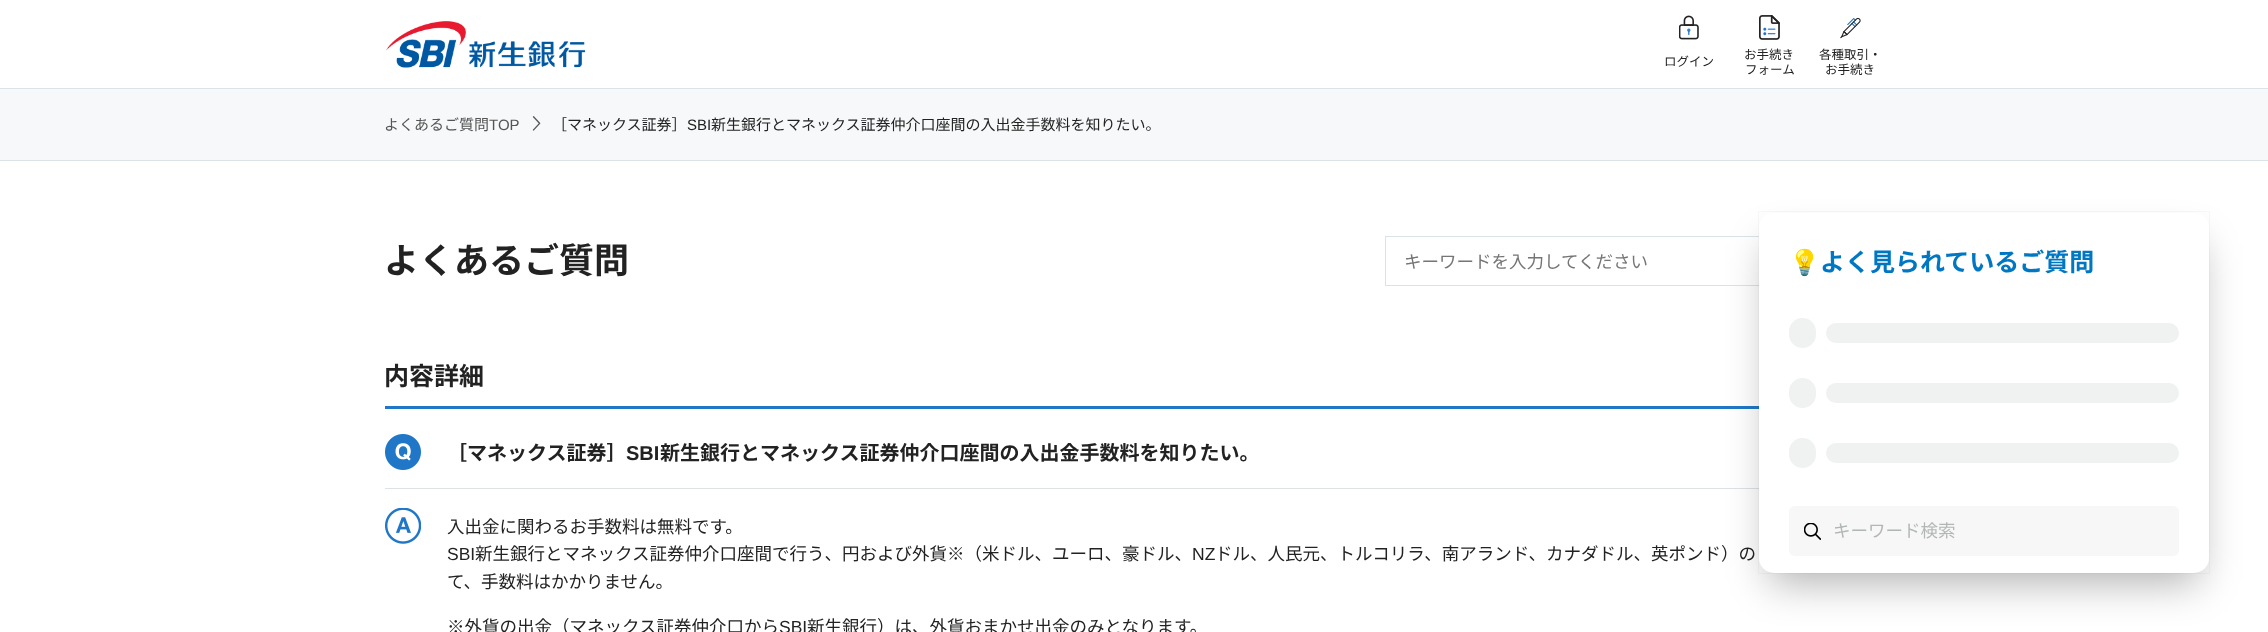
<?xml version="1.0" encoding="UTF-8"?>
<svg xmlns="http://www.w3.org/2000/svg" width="2268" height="632">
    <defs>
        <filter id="blur1" x="-50%" y="-200%" width="200%" height="500%"><feGaussianBlur stdDeviation="20"/></filter>
    </defs>
    <rect width="100%" height="100%" fill="#FFFFFF"/>
    <rect x="0" y="88" width="2268" height="1" fill="#DBE3E8"/>
    <image x="386" y="21" width="200" height="47" href="img_01.png"/>
    <image x="1679" y="15" width="20" height="25" href="img_02.png"/>
    <text x="1664" y="66" font-family="Noto Sans JP" font-size="12.5" fill="#222222">ログイン</text>
    <image x="1759" y="15" width="21" height="25" href="img_03.png"/>
    <text x="1744" y="59" font-family="Noto Sans JP" font-size="12.5" fill="#222222">お手続き</text>
    <text x="1745" y="74" font-family="Noto Sans JP" font-size="12.5" fill="#222222">フォーム</text>
    <image x="1840" y="17" width="21" height="22" href="img_04.png"/>
    <text x="1819" y="59" font-family="Noto Sans JP" font-size="12.5" fill="#222222">各種取引・</text>
    <text x="1825" y="74" font-family="Noto Sans JP" font-size="12.5" fill="#222222">お手続き</text>
    <rect x="0" y="89" width="2268" height="71" fill="#F6F8F9"/>
    <rect x="0" y="160" width="2268" height="1" fill="#DBE3E8"/>
    <text x="384" y="130" font-family="Noto Sans JP" font-size="15" fill="#555555">よくあるご質問</text>
    <text x="489" y="130" font-family="Liberation Sans" font-size="15" fill="#555555">TOP</text>
    <image x="532" y="116" width="9" height="15" href="img_05.png"/>
    <text x="552" y="130" font-family="Noto Sans JP" font-size="15" fill="#222222">［マネックス証券］</text>
    <text x="687" y="130" font-family="Liberation Sans" font-size="15" fill="#222222">SBI</text>
    <text x="711" y="130" font-family="Noto Sans JP" font-size="15" fill="#222222">新生銀行とマネックス証券仲介口座間の入出金手数料を知りたい。</text>
    <text x="384" y="273" font-family="Noto Sans JP" font-size="35" font-weight="700" fill="#222222">よくあるご質問</text>
    <rect x="1385.5" y="236.5" width="499" height="49" fill="none" stroke="#DBE3E8"/>
    <text x="1404" y="268" font-family="Noto Sans JP" font-size="17.5" fill="#757575">キーワードを入力してください</text>
    <rect x="385" y="406" width="1374" height="3" fill="#2076C7"/>
    <text x="384" y="385" font-family="Noto Sans JP" font-size="25" font-weight="700" fill="#222222">内容詳細</text>
    <image x="385" y="434" width="36" height="36" href="img_06.png"/>
    <rect x="385" y="488" width="1374" height="1" fill="#DBE3E8"/>
    <text x="447" y="460" font-family="Noto Sans JP" font-size="20" font-weight="700" fill="#222222">［マネックス証券］</text>
    <text x="626" y="460" font-family="Liberation Sans" font-size="20" font-weight="700" fill="#222222">SBI</text>
    <text x="660" y="460" font-family="Noto Sans JP" font-size="20" font-weight="700" fill="#222222">新生銀行とマネックス証券仲介口座間の入出金手数料を知りたい。</text>
    <image x="385" y="508" width="36" height="36" href="img_07.png"/>
    <text x="447" y="533" font-family="Noto Sans JP" font-size="17.5" fill="#222222">入出金に関わるお手数料は無料です。</text>
    <text x="447" y="560" font-family="Liberation Sans" font-size="17.5" fill="#222222">SBI</text>
    <text x="475" y="560" font-family="Noto Sans JP" font-size="17.5" fill="#222222">新生銀行とマネックス証券仲介口座間で行う、円および外貨※（米ドル、ユーロ、豪ドル、</text>
    <text x="1192" y="560" font-family="Liberation Sans" font-size="17.5" fill="#222222">NZ</text>
    <text x="1215" y="560" font-family="Noto Sans JP" font-size="17.5" fill="#222222">ドル、人民元、トルコリラ、南アランド、カナダドル、英ポンド）の</text>
    <text x="447" y="588" font-family="Noto Sans JP" font-size="17.5" fill="#222222">て、手数料はかかりません。</text>
    <text x="447" y="633" font-family="Noto Sans JP" font-size="17.5" fill="#222222">※外貨の出金（マネックス証券仲介口から</text>
    <text x="779" y="633" font-family="Liberation Sans" font-size="17.5" fill="#222222">SBI</text>
    <text x="807" y="633" font-family="Noto Sans JP" font-size="17.5" fill="#222222">新生銀行）は、外貨おまかせ出金のみとなります。</text>
    <rect x="1769" y="243" width="430" height="340" rx="5" fill="#00100E" fill-opacity="0.3" filter="url(#blur1)"/>
    <rect x="1758.5" y="211.5" width="451" height="362" fill="none" stroke="#00100E" stroke-opacity="0.03"/>
    <rect x="1759" y="213" width="450" height="360" rx="15" fill="#FFFFFF"/>
    <text x="1789" y="271" font-family="Noto Color Emoji" font-size="25" font-weight="700" fill="#0077C2">💡</text>
    <text x="1820" y="271" font-family="Noto Sans JP" font-size="25" font-weight="700" fill="#0077C2">よく見られているご質問</text>
    <rect x="1789" y="318" width="27" height="30" rx="13.5" fill="#F0F1F1"/>
    <rect x="1826" y="323" width="353" height="20" rx="10" fill="#F0F1F1"/>
    <rect x="1789" y="378" width="27" height="30" rx="13.5" fill="#F0F1F1"/>
    <rect x="1826" y="383" width="353" height="20" rx="10" fill="#F0F1F1"/>
    <rect x="1789" y="438" width="27" height="30" rx="13.5" fill="#F0F1F1"/>
    <rect x="1826" y="443" width="353" height="20" rx="10" fill="#F0F1F1"/>
    <rect x="1789" y="506" width="390" height="50" rx="6" fill="#F7F7F7"/>
    <image x="1804" y="523" width="17" height="17" href="img_08.png"/>
    <text x="1833" y="537" font-family="Noto Sans JP" font-size="17.5" fill="#B2B7B6">キーワード検索</text>
</svg>
